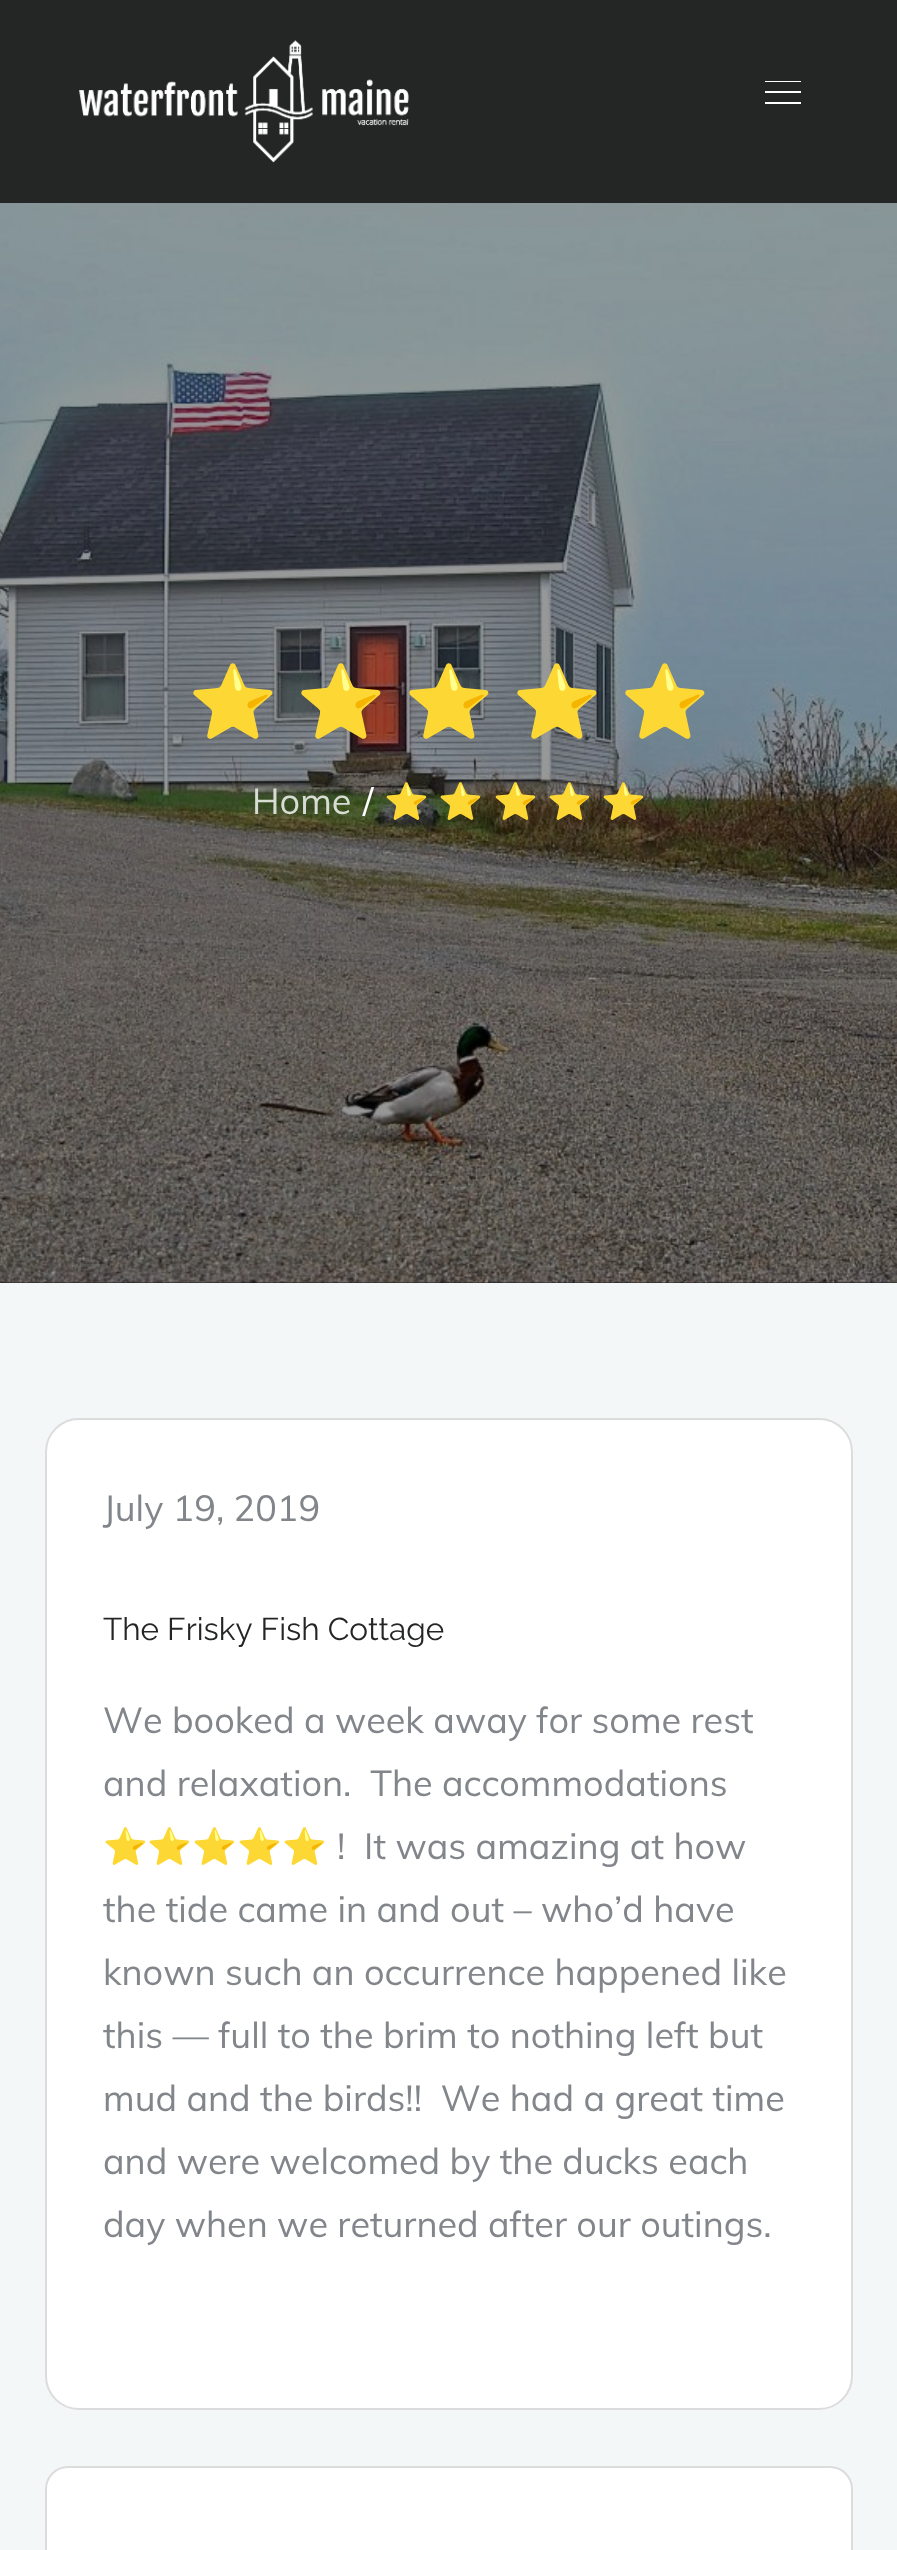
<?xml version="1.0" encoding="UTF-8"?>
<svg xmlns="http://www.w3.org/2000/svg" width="897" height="2550">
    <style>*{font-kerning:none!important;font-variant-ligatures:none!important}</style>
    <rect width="100%" height="100%" fill="#F3F7F8"/>
    <rect x="0" y="0" width="897" height="203" fill="#242625"/>
    <image x="79" y="40" width="330" height="123" href="img_01.png"/>
    <rect x="765" y="81" width="36" height="1" fill="#FFFFFF"/>
    <rect x="765" y="91" width="36" height="2" fill="#FFFFFF"/>
    <rect x="765" y="102" width="36" height="2" fill="#FFFFFF"/>
    <rect x="0" y="1282" width="897" height="1" fill="#1F1F1F"/>
    <image x="0" y="203" width="897" height="1080" href="img_02.png"/>
    <text x="188" y="727" font-family="Noto Color Emoji" font-size="72" fill="#FFFFFF">⭐</text>
    <text x="296" y="727" font-family="Noto Color Emoji" font-size="72" fill="#FFFFFF">⭐</text>
    <text x="404" y="727" font-family="Noto Color Emoji" font-size="72" fill="#FFFFFF">⭐</text>
    <text x="512" y="727" font-family="Noto Color Emoji" font-size="72" fill="#FFFFFF">⭐</text>
    <text x="620" y="727" font-family="Noto Color Emoji" font-size="72" fill="#FFFFFF">⭐</text>
    <text x="252" y="814" font-family="Muli" font-size="36" fill="#D8DCD4">Home</text>
    <text x="363" y="814" font-family="Muli" font-size="36" fill="#FFFFFF">/</text>
    <text x="384" y="814" font-family="Noto Color Emoji" font-size="36" fill="#FFFFFF">⭐</text>
    <text x="438" y="814" font-family="Noto Color Emoji" font-size="36" fill="#FFFFFF">⭐</text>
    <text x="493" y="814" font-family="Noto Color Emoji" font-size="36" fill="#FFFFFF">⭐</text>
    <text x="547" y="814" font-family="Noto Color Emoji" font-size="36" fill="#FFFFFF">⭐</text>
    <text x="601" y="814" font-family="Noto Color Emoji" font-size="36" fill="#FFFFFF">⭐</text>
    <rect x="46" y="1419" width="806" height="990" rx="33" fill="#FFFFFF" stroke="#DCDCDC" stroke-width="2"/>
    <text x="103" y="1521" font-family="Muli" font-size="36" fill="#82868B">July 19, 2019</text>
    <text x="103" y="1640" font-family="Raleway" font-size="31.5" fill="#242625">The Frisky Fish Cottage</text>
    <text font-family="Muli" font-size="36" fill="#82868B" xml:space="preserve"><tspan x="103" y="1733">We booked a week away for some rest</tspan><tspan x="103" y="1796">and relaxation.  The accommodations</tspan></text>
    <text x="103" y="1859" font-family="Noto Color Emoji" font-size="36" fill="#82868B">⭐⭐⭐⭐⭐</text>
    <text x="337" y="1859" font-family="Muli" font-size="36" fill="#82868B" xml:space="preserve">!  It was amazing at how</text>
    <text font-family="Muli" font-size="36" fill="#82868B" xml:space="preserve"><tspan x="103" y="1922">the tide came in and out – who’d have</tspan><tspan x="103" y="1985">known such an occurrence happened like</tspan><tspan x="103" y="2048">this — full to the brim to nothing left but</tspan><tspan x="103" y="2111">mud and the birds!!  We had a great time</tspan><tspan x="103" y="2174">and were welcomed by the ducks each</tspan><tspan x="103" y="2237">day when we returned after our outings.</tspan></text>
    <rect x="46" y="2467" width="806" height="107" rx="22" fill="#FFFFFF" stroke="#DCDCDC" stroke-width="2"/>
</svg>
